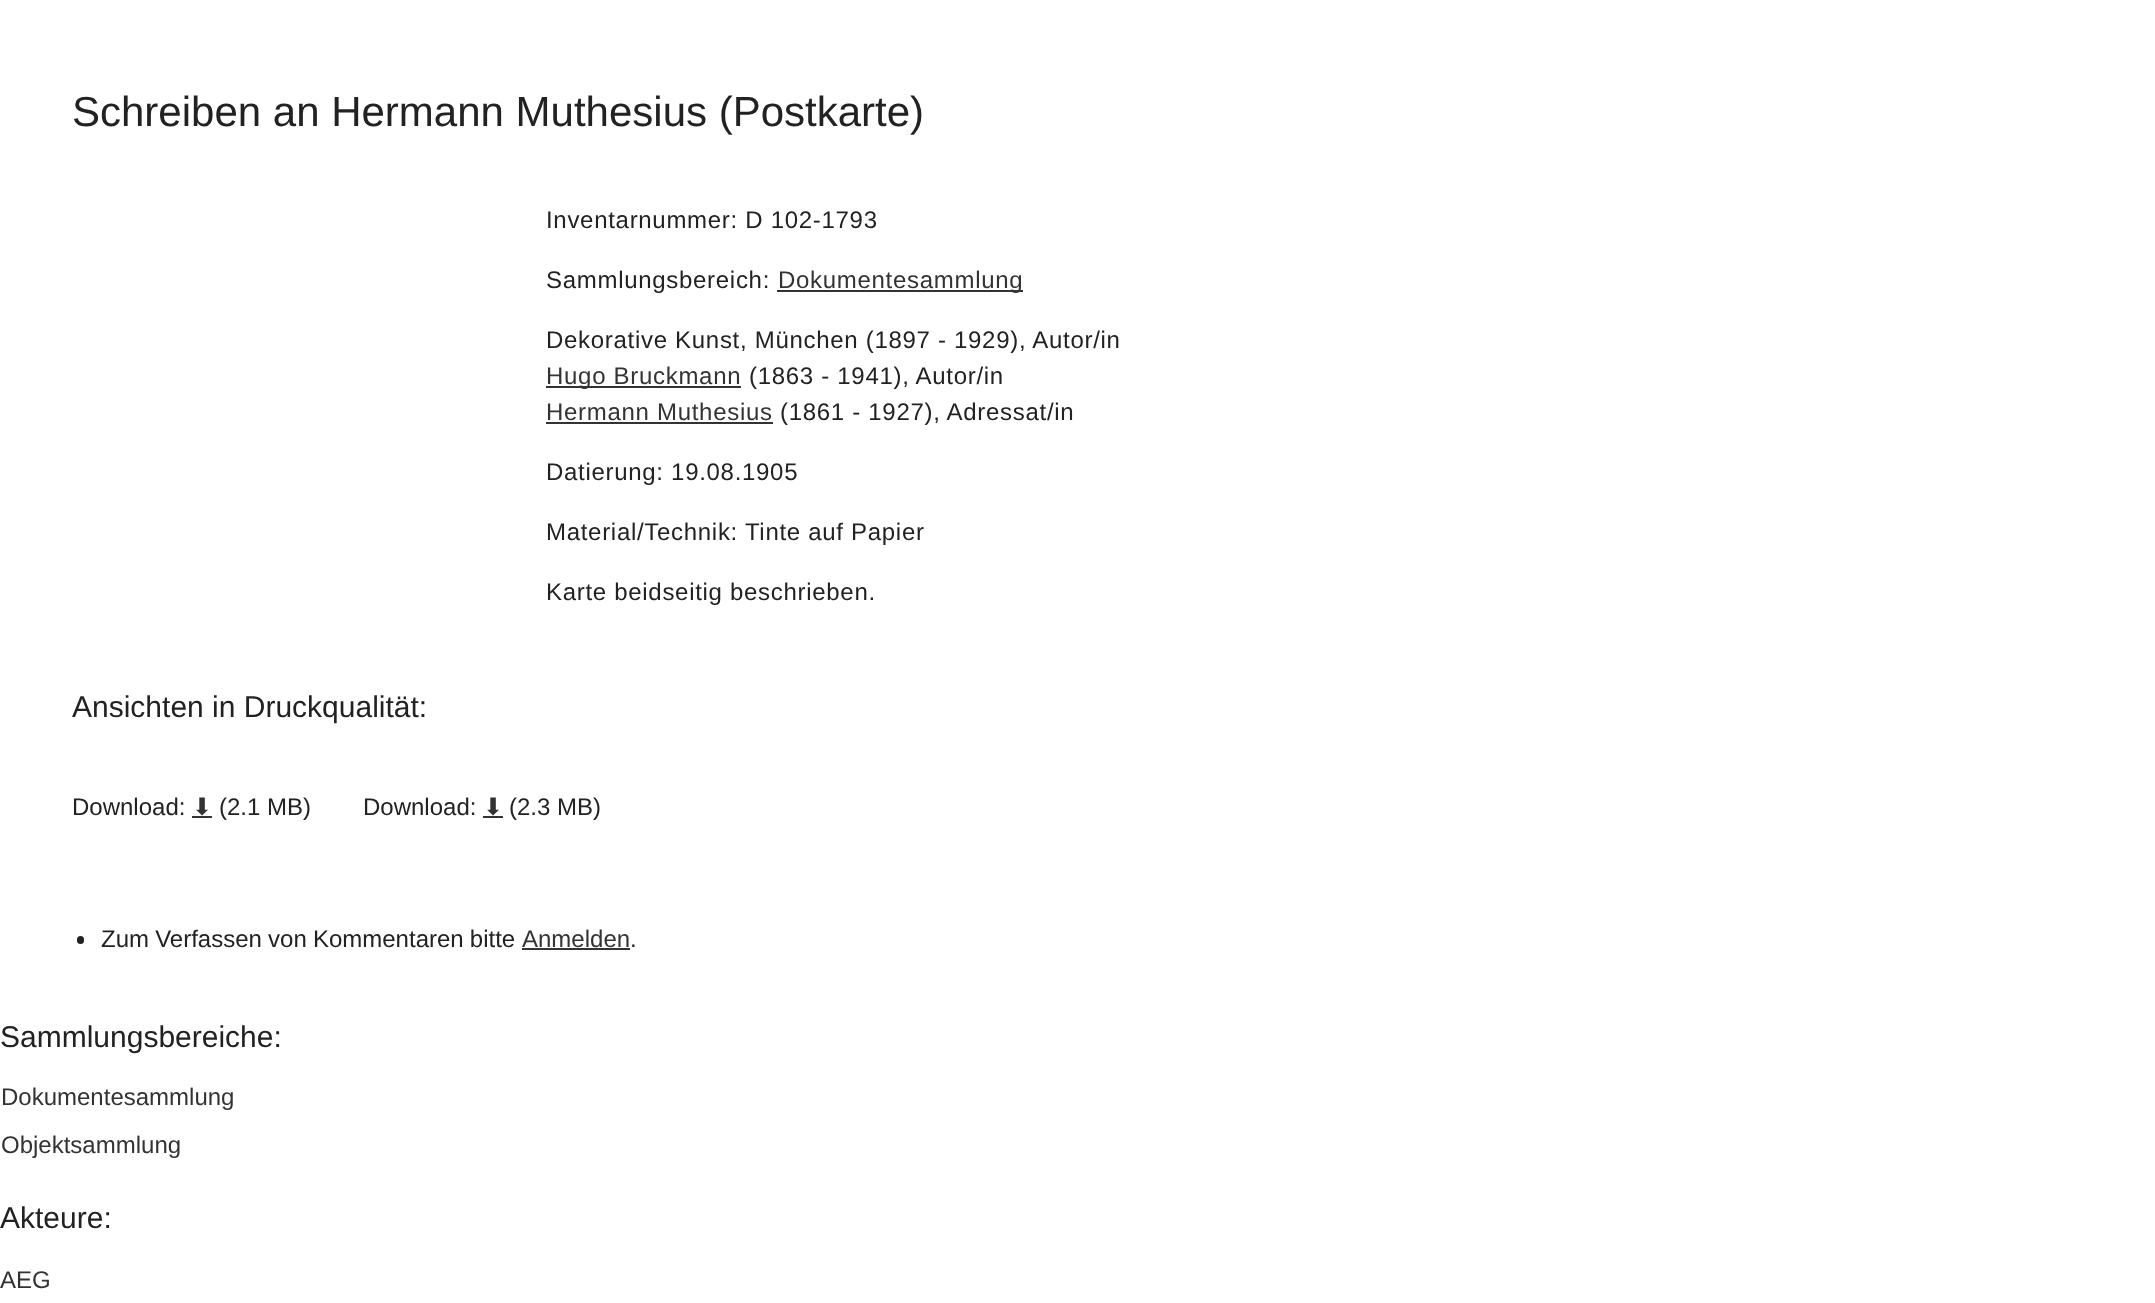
<?xml version="1.0" encoding="UTF-8"?>
<svg xmlns="http://www.w3.org/2000/svg" width="2155" height="1303">
    <rect width="100%" height="100%" fill="#FFFFFF"/>
    <text x="72" y="126" font-family="Liberation Sans" font-size="42" fill="#222222">Schreiben an Hermann Muthesius (Postkarte)</text>
    <text x="546" y="228" font-family="Liberation Sans" font-size="24" letter-spacing="0.7" fill="#222222">Inventarnummer: D 102-1793</text>
    <text x="546" y="288" font-family="Liberation Sans" font-size="24" letter-spacing="0.7" fill="#222222">Sammlungsbereich:</text>
    <rect x="777" y="290" width="246" height="2" fill="#333333"/>
    <text x="778" y="288" font-family="Liberation Sans" font-size="24" letter-spacing="0.7" fill="#333333">Dokumentesammlung</text>
    <text x="546" y="348" font-family="Liberation Sans" font-size="24" letter-spacing="0.7" fill="#222222">Dekorative Kunst, München (1897 - 1929), Autor/in</text>
    <rect x="546" y="386" width="195" height="2" fill="#333333"/>
    <text x="546" y="384" font-family="Liberation Sans" font-size="24" letter-spacing="0.7" fill="#333333">Hugo Bruckmann</text>
    <text x="749" y="384" font-family="Liberation Sans" font-size="24" letter-spacing="0.7" fill="#222222">(1863 - 1941), Autor/in</text>
    <text x="546" y="420" font-family="Liberation Sans" font-size="24" letter-spacing="0.7" fill="#333333">Hermann Muthesius</text>
    <rect x="546" y="422" width="227" height="2" fill="#333333"/>
    <text x="780" y="420" font-family="Liberation Sans" font-size="24" letter-spacing="0.7" fill="#222222">(1861 - 1927), Adressat/in</text>
    <text x="546" y="480" font-family="Liberation Sans" font-size="24" letter-spacing="0.7" fill="#222222">Datierung: 19.08.1905</text>
    <text x="546" y="540" font-family="Liberation Sans" font-size="24" letter-spacing="0.7" fill="#222222">Material/Technik: Tinte auf Papier</text>
    <text x="546" y="600" font-family="Liberation Sans" font-size="24" letter-spacing="0.7" fill="#222222">Karte beidseitig beschrieben.</text>
    <text x="72" y="717" font-family="Liberation Sans" font-size="30" fill="#222222">Ansichten in Druckqualität:</text>
    <text x="72" y="815" font-family="Liberation Sans" font-size="24" fill="#222222">Download:</text>
    <text x="192" y="815" font-family="DejaVu Sans" font-size="24" fill="#333333">⬇</text>
    <rect x="192" y="816" width="20" height="2" fill="#333333"/>
    <text x="219" y="815" font-family="Liberation Sans" font-size="24" fill="#222222">(2.1 MB)</text>
    <text x="363" y="815" font-family="Liberation Sans" font-size="24" fill="#222222">Download:</text>
    <text x="483" y="815" font-family="DejaVu Sans" font-size="24" fill="#333333">⬇</text>
    <rect x="483" y="816" width="20" height="2" fill="#333333"/>
    <text x="509" y="815" font-family="Liberation Sans" font-size="24" fill="#222222">(2.3 MB)</text>
    <rect x="77" y="936" width="7" height="8" rx="3.5" fill="#222222"/>
    <text x="101" y="947" word-spacing="-0.5" font-family="Liberation Sans" font-size="24" fill="#222222">Zum Verfassen von Kommentaren bitte</text>
    <text x="522" y="947" font-family="Liberation Sans" font-size="24" fill="#333333">Anmelden</text>
    <text x="630" y="947" font-family="Liberation Sans" font-size="24" fill="#222222">.</text>
    <rect x="522" y="948" width="108" height="2" fill="#333333"/>
    <text x="0" y="1047" font-family="Liberation Sans" font-size="30" fill="#222222">Sammlungsbereiche:</text>
    <text x="1" y="1105" font-family="Liberation Sans" font-size="24" fill="#333333">Dokumentesammlung</text>
    <text x="1" y="1153" font-family="Liberation Sans" font-size="24" fill="#333333">Objektsammlung</text>
    <text x="0" y="1228" font-family="Liberation Sans" font-size="30" fill="#222222">Akteure:</text>
    <text x="0" y="1288" font-family="Liberation Sans" font-size="24" fill="#333333">AEG</text>
</svg>
